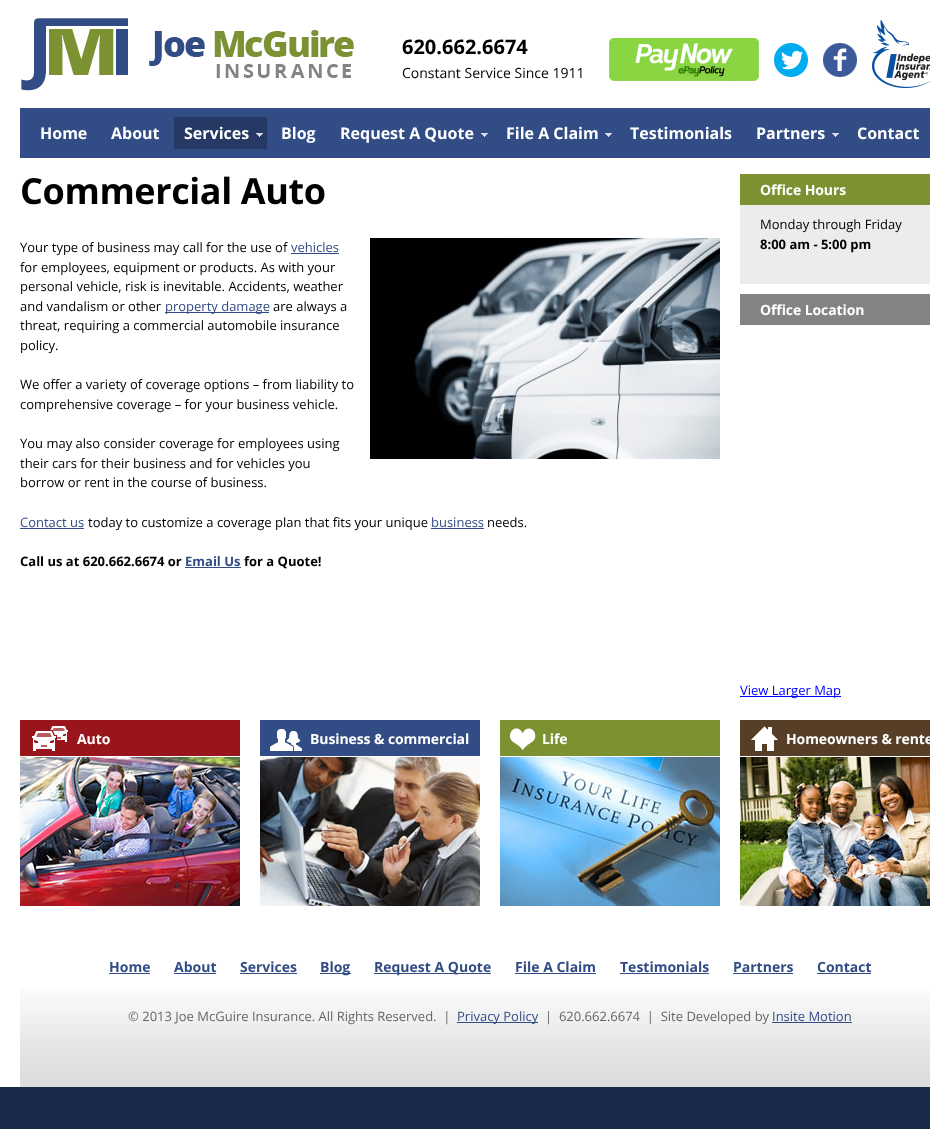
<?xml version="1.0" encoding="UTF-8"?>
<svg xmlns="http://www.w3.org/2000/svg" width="930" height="1129">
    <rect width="100%" height="100%" fill="#1A294A"/>
    <rect x="0" y="0" width="930" height="1087" fill="#FFFFFF"/>
    <image x="21" y="18" width="333" height="73" href="img_01.png"/>
    <text x="402" y="54" font-family="Open Sans" font-size="20" font-weight="700" fill="#000000">620.662.6674</text>
    <text x="402" y="78" font-family="Open Sans" font-size="14" fill="#000000">Constant Service Since 1911</text>
    <image x="609" y="38" width="150" height="43" href="img_02.png"/>
    <image x="774" y="43" width="34" height="34" href="img_03.png"/>
    <image x="823" y="43" width="34" height="34" href="img_04.png"/>
    <image x="872" y="20" width="58" height="68" href="img_05.png"/>
    <rect x="20" y="108" width="910" height="50" fill="#324C85"/>
    <text x="40" y="139" font-family="Open Sans" font-size="16" font-weight="700" fill="#FFFFFF">Home</text>
    <text x="111" y="139" font-family="Open Sans" font-size="16" font-weight="700" fill="#FFFFFF">About</text>
    <rect x="174" y="117" width="93" height="32" fill="#253964"/>
    <text x="184" y="139" font-family="Open Sans" font-size="16" font-weight="700" fill="#FFFFFF">Services</text>
    <image x="256" y="133" width="7" height="4" href="img_06.png"/>
    <text x="281" y="139" font-family="Open Sans" font-size="16" font-weight="700" fill="#FFFFFF">Blog</text>
    <text x="340" y="139" font-family="Open Sans" font-size="16" font-weight="700" fill="#FFFFFF">Request A Quote</text>
    <image x="481" y="133" width="7" height="4" href="img_07.png"/>
    <text x="506" y="139" font-family="Open Sans" font-size="16" font-weight="700" fill="#FFFFFF">File A Claim</text>
    <image x="605" y="133" width="7" height="4" href="img_07.png"/>
    <text x="630" y="139" font-family="Open Sans" font-size="16" font-weight="700" fill="#FFFFFF">Testimonials</text>
    <text x="756" y="139" font-family="Open Sans" font-size="16" font-weight="700" fill="#FFFFFF">Partners</text>
    <image x="832" y="133" width="7" height="4" href="img_07.png"/>
    <text x="857" y="139" font-family="Open Sans" font-size="16" font-weight="700" fill="#FFFFFF">Contact</text>
    <text x="20" y="204" font-family="Open Sans" font-size="36" font-weight="700" letter-spacing="-0.4" fill="#000000">Commercial Auto</text>
    <text x="20" y="252" font-family="Open Sans" font-size="13" fill="#000000">Your type of business may call for the use of</text>
    <text x="291" y="252" font-family="Open Sans" font-size="13" fill="#324C85">vehicles</text>
    <rect x="291" y="253" width="48" height="1" fill="#324C85"/>
    <text font-family="Open Sans" font-size="13" fill="#000000">
        <tspan x="20" y="272">for employees, equipment or products. As with your</tspan>
        <tspan x="20" y="291">personal vehicle, risk is inevitable. Accidents, weather</tspan>
        <tspan x="20" y="311">and vandalism or other</tspan>
    </text>
    <rect x="165" y="312" width="104" height="1" fill="#324C85"/>
    <text x="165" y="311" font-family="Open Sans" font-size="13" fill="#324C85">property damage</text>
    <text x="273" y="311" font-family="Open Sans" font-size="13" fill="#000000">are always a</text>
    <text font-family="Open Sans" font-size="13" fill="#000000">
        <tspan x="20" y="330">threat, requiring a commercial automobile insurance</tspan>
        <tspan x="20" y="350">policy.</tspan>
    </text>
    <text font-family="Open Sans" font-size="13" fill="#000000">
        <tspan x="20" y="389">We offer a variety of coverage options – from liability to</tspan>
        <tspan x="20" y="409">comprehensive coverage – for your business vehicle.</tspan>
    </text>
    <text font-family="Open Sans" font-size="13" fill="#000000">
        <tspan x="20" y="448">You may also consider coverage for employees using</tspan>
        <tspan x="20" y="468">their cars for their business and for vehicles you</tspan>
        <tspan x="20" y="487">borrow or rent in the course of business.</tspan>
    </text>
    <text x="20" y="527" font-family="Open Sans" font-size="13" fill="#324C85">Contact us</text>
    <rect x="20" y="528" width="64" height="1" fill="#324C85"/>
    <text x="88" y="527" font-family="Open Sans" font-size="13" fill="#000000">today to customize a coverage plan that fits your unique</text>
    <text x="431" y="527" font-family="Open Sans" font-size="13" fill="#324C85">business</text>
    <rect x="431" y="528" width="53" height="1" fill="#324C85"/>
    <text x="487" y="527" font-family="Open Sans" font-size="13" fill="#000000">needs.</text>
    <text x="20" y="566" font-family="Open Sans" font-size="13" font-weight="700" fill="#000000">Call us at 620.662.6674 or</text>
    <text x="185" y="566" font-family="Open Sans" font-size="13" font-weight="700" fill="#324C85">Email Us</text>
    <rect x="185" y="567" width="56" height="1" fill="#324C85"/>
    <text x="244" y="566" font-family="Open Sans" font-size="13" font-weight="700" fill="#000000">for a Quote!</text>
    <image x="370" y="238" width="350" height="221" href="img_08.png"/>
    <rect x="740" y="174" width="190" height="31" fill="#7C9232"/>
    <text x="760" y="195" font-family="Open Sans" font-size="14" font-weight="700" letter-spacing="-0.1" fill="#FFFFFF">Office Hours</text>
    <rect x="740" y="205" width="190" height="79" fill="#ECECEC"/>
    <text x="760" y="229" font-family="Open Sans" font-size="13" fill="#000000">Monday through Friday</text>
    <text x="760" y="249" font-family="Open Sans" font-size="13" font-weight="700" fill="#000000">8:00 am - 5:00 pm</text>
    <rect x="740" y="294" width="190" height="31" fill="#818384"/>
    <text x="760" y="315" font-family="Open Sans" font-size="14" font-weight="700" letter-spacing="-0.1" fill="#FFFFFF">Office Location</text>
    <rect x="740" y="696" width="101" height="1" fill="#0000FF"/>
    <text x="740" y="695" font-family="Open Sans" font-size="13" fill="#0000FF">View Larger Map</text>
    <rect x="20" y="720" width="220" height="36" fill="#99151C"/>
    <image x="32" y="726" width="36" height="25" href="img_09.png"/>
    <text x="77" y="744" font-family="Open Sans" font-size="14" font-weight="700" letter-spacing="-0.1" fill="#FFFFFF">Auto</text>
    <image x="20" y="757" width="220" height="149" href="img_10.png"/>
    <rect x="260" y="720" width="220" height="36" fill="#324C85"/>
    <image x="270" y="729" width="32" height="22" href="img_11.png"/>
    <text x="310" y="744" font-family="Open Sans" font-size="14" font-weight="700" letter-spacing="-0.1" fill="#FFFFFF">Business &amp; commercial</text>
    <image x="260" y="757" width="220" height="149" href="img_12.png"/>
    <rect x="500" y="720" width="220" height="36" fill="#7C9232"/>
    <image x="510" y="728" width="26" height="23" href="img_13.png"/>
    <text x="542" y="744" font-family="Open Sans" font-size="14" font-weight="700" letter-spacing="-0.1" fill="#FFFFFF">Life</text>
    <image x="500" y="757" width="220" height="149" href="img_14.png"/>
    <rect x="740" y="720" width="190" height="36" fill="#573E26"/>
    <image x="751" y="726" width="27" height="25" href="img_15.png"/>
    <text x="786" y="744" font-family="Open Sans" font-size="14" font-weight="700" letter-spacing="-0.1" fill="#FFFFFF">Homeowners &amp; rente</text>
    <image x="740" y="757" width="190" height="149" href="img_16.png"/>
    <image x="20" y="989" width="910" height="98" href="img_17.png"/>
    <text x="109" y="972" font-family="Open Sans" font-size="14" font-weight="700" fill="#324C85">Home</text>
    <rect x="109" y="973" width="41" height="1" fill="#324C85"/>
    <text x="174" y="972" font-family="Open Sans" font-size="14" font-weight="700" fill="#324C85">About</text>
    <rect x="174" y="973" width="42" height="1" fill="#324C85"/>
    <text x="240" y="972" font-family="Open Sans" font-size="14" font-weight="700" fill="#324C85">Services</text>
    <rect x="240" y="973" width="57" height="1" fill="#324C85"/>
    <rect x="320" y="973" width="31" height="1" fill="#324C85"/>
    <text x="320" y="972" font-family="Open Sans" font-size="14" font-weight="700" fill="#324C85">Blog</text>
    <rect x="374" y="973" width="117" height="1" fill="#324C85"/>
    <text x="374" y="972" font-family="Open Sans" font-size="14" font-weight="700" fill="#324C85">Request A Quote</text>
    <text x="515" y="972" font-family="Open Sans" font-size="14" font-weight="700" fill="#324C85">File A Claim</text>
    <rect x="515" y="973" width="81" height="1" fill="#324C85"/>
    <text x="620" y="972" font-family="Open Sans" font-size="14" font-weight="700" fill="#324C85">Testimonials</text>
    <rect x="620" y="973" width="89" height="1" fill="#324C85"/>
    <text x="733" y="972" font-family="Open Sans" font-size="14" font-weight="700" fill="#324C85">Partners</text>
    <rect x="733" y="973" width="60" height="1" fill="#324C85"/>
    <text x="817" y="972" font-family="Open Sans" font-size="14" font-weight="700" fill="#324C85">Contact</text>
    <rect x="817" y="973" width="54" height="1" fill="#324C85"/>
    <text x="128" y="1021" font-family="Open Sans" font-size="13" fill="#666666" xml:space="preserve">© 2013 Joe McGuire Insurance. All Rights Reserved.  |</text>
    <rect x="457" y="1022" width="81" height="1" fill="#324C85"/>
    <text x="457" y="1021" font-family="Open Sans" font-size="13" fill="#324C85">Privacy Policy</text>
    <text x="545" y="1021" font-family="Open Sans" font-size="13" fill="#666666" xml:space="preserve">|  620.662.6674  |  Site Developed by</text>
    <text x="772" y="1021" font-family="Open Sans" font-size="13" fill="#324C85">Insite Motion</text>
    <rect x="772" y="1022" width="80" height="1" fill="#324C85"/>
</svg>
